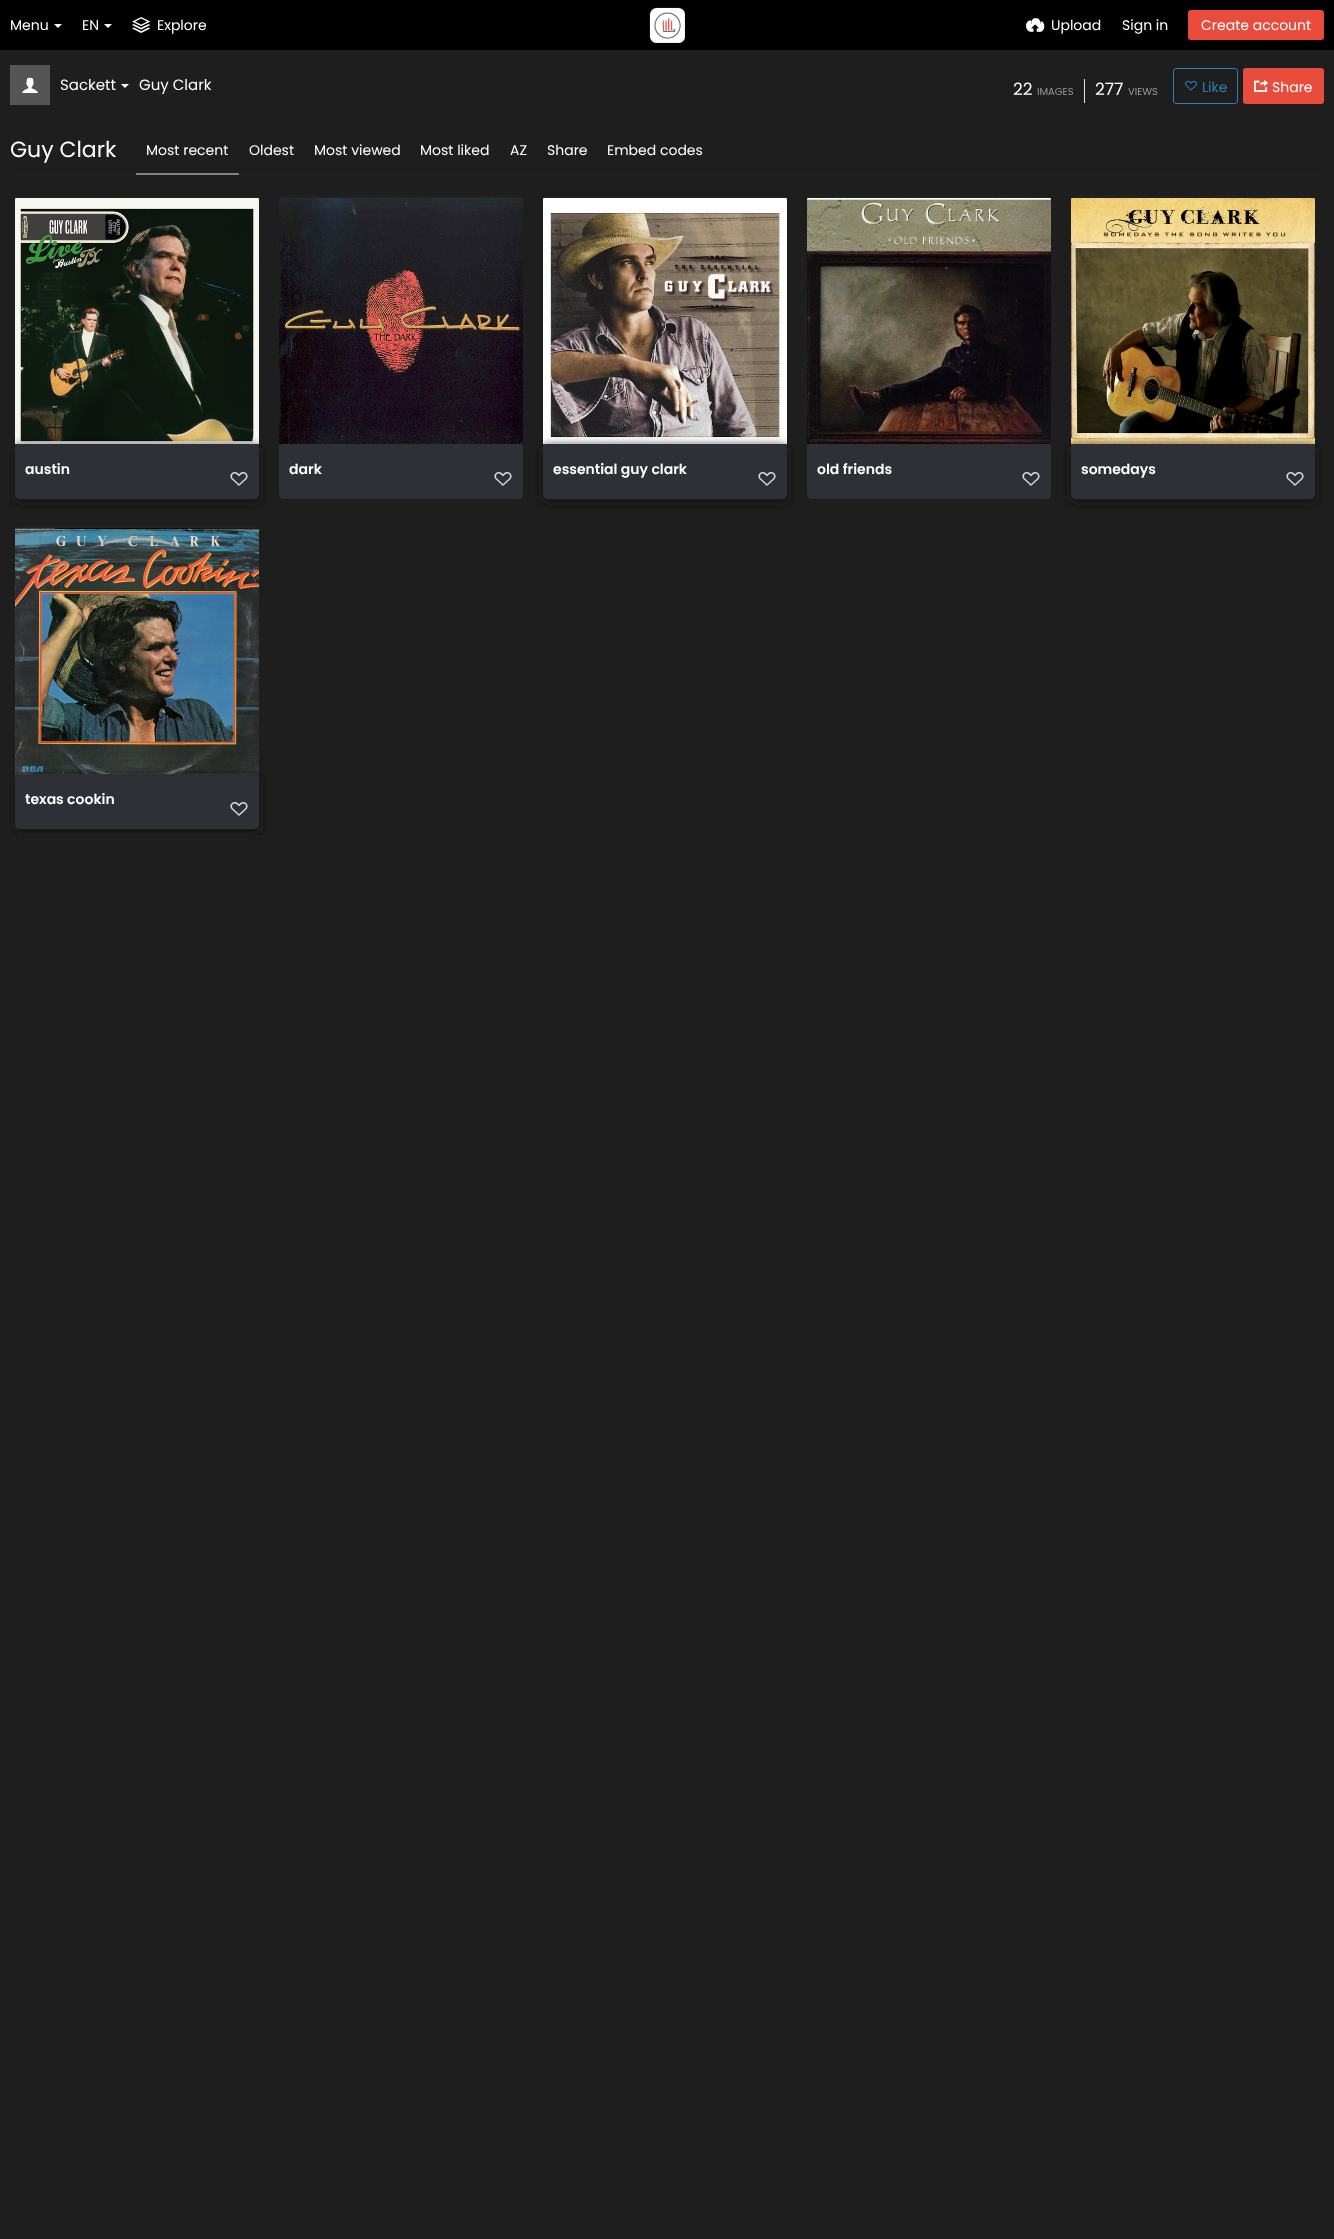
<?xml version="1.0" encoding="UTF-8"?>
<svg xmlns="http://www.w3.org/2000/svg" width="1334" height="2239">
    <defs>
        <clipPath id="clip1"><rect x="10" y="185" width="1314" height="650"/></clipPath>
        <filter id="blur1" x="-50%" y="-200%" width="200%" height="500%"><feGaussianBlur stdDeviation="5"/></filter>
    </defs>
    <rect width="100%" height="100%" fill="#1E1E1E"/>
    <rect x="0" y="0" width="1334" height="50" fill="#000000"/>
    <text x="10" y="30" font-family="Poppins" font-size="14" fill="#FFFFFF">Menu</text>
    <path d="M 54 24 H 62 L 58 28 Z" fill="#FFFFFF"/>
    <text x="82" y="30" font-family="Poppins" font-size="14" fill="#FFFFFF">EN</text>
    <path d="M 104 24 H 112 L 108 28 Z" fill="#FFFFFF"/>
    <image x="132" y="17" width="19" height="16" href="img_01.png"/>
    <text x="157" y="30" font-family="Poppins" font-size="14" fill="#FFFFFF">Explore</text>
    <image x="649" y="7" width="36" height="36" href="img_02.png"/>
    <image x="1026" y="18" width="19" height="14" href="img_03.png"/>
    <text x="1051" y="30" font-family="Poppins" font-size="14" fill="#FFFFFF">Upload</text>
    <text x="1122" y="30" font-family="Poppins" font-size="14" fill="#FFFFFF">Sign in</text>
    <rect x="1188" y="10" width="136" height="30" rx="3" fill="#E84C3D"/>
    <text x="1201" y="30" font-family="Poppins" font-size="14" fill="#FFFFFF">Create account</text>
    <rect x="10" y="65" width="40" height="40" fill="#555555"/>
    <image x="22" y="77" width="16" height="16" href="img_04.png"/>
    <text x="60" y="90" font-family="Poppins" font-size="15" fill="#FFFFFF">Sackett</text>
    <path d="M 121 84 H 129 L 125 88 Z" fill="#FFFFFF"/>
    <text x="139" y="90" font-family="Poppins" font-size="15" fill="#FFFFFF">Guy Clark</text>
    <text x="1013" y="95" font-family="Poppins" font-size="17" fill="#FFFFFF">22</text>
    <text x="1037" y="95" font-family="Poppins" font-size="10" fill="#999999">IMAGES</text>
    <rect x="1084" y="79" width="1" height="24" fill="#E5E5E5"/>
    <text x="1095" y="95" font-family="Poppins" font-size="17" fill="#FFFFFF">277</text>
    <text x="1128" y="95" font-family="Poppins" font-size="10" fill="#999999">VIEWS</text>
    <rect x="1173.5" y="68.5" width="64" height="35" rx="2.5" fill="none" stroke="#2A80B9"/>
    <image x="1185" y="80" width="12" height="11" href="img_05.png"/>
    <text x="1202" y="92" font-family="Poppins" font-size="14" fill="#2A80B9">Like</text>
    <rect x="1243" y="68" width="81" height="36" rx="3" fill="#E84C3D"/>
    <image x="1254" y="79" width="14" height="13" href="img_06.png"/>
    <text x="1272" y="92" font-family="Poppins" font-size="14" fill="#FFFFFF">Share</text>
    <rect x="10" y="174" width="1314" height="1" fill="#212121"/>
    <text x="10" y="157" font-family="Poppins" font-size="22" fill="#FFFFFF">Guy Clark</text>
    <rect x="136" y="173" width="103" height="2" fill="#7A888C"/>
    <text x="146" y="155" font-family="Poppins" font-size="14" fill="#FFFFFF">Most recent</text>
    <text x="249" y="155" font-family="Poppins" font-size="14" fill="#FFFFFF">Oldest</text>
    <text x="314" y="155" font-family="Poppins" font-size="14" fill="#FFFFFF">Most viewed</text>
    <text x="420" y="155" font-family="Poppins" font-size="14" fill="#FFFFFF">Most liked</text>
    <text x="510" y="155" font-family="Poppins" font-size="14" fill="#FFFFFF">AZ</text>
    <text x="547" y="155" font-family="Poppins" font-size="14" fill="#FFFFFF">Share</text>
    <text x="607" y="155" font-family="Poppins" font-size="14" fill="#FFFFFF">Embed codes</text>
    <rect x="15" y="195" width="244" height="254" rx="5" fill="#212121"/>
    <image x="15" y="198" width="244" height="246" href="img_07.png"/>
    <g clip-path="url(#clip1)">
        <rect x="14" y="446" width="246" height="57" rx="6" fill="#151515" filter="url(#blur1)"/>
    </g>
    <path d="M 15 444 H 259 V 494 C 259 497 257 499 254 499 H 20 C 17 499 15 497 15 494 Z" fill="#2E3035"/>
    <text x="25" y="474" font-family="Poppins" font-size="14" font-weight="600" fill="#FFFFFF">austin</text>
    <image x="230" y="472" width="18" height="14" href="img_08.png"/>
    <rect x="279" y="195" width="244" height="254" rx="5" fill="#212121"/>
    <image x="279" y="198" width="244" height="246" href="img_09.png"/>
    <path d="M 279 444 H 523 V 494 C 523 497 521 499 518 499 H 284 C 281 499 279 497 279 494 Z" fill="#2E3035"/>
    <text x="289" y="474" font-family="Poppins" font-size="14" font-weight="600" fill="#FFFFFF">dark</text>
    <image x="494" y="472" width="18" height="14" href="img_08.png"/>
    <rect x="543" y="195" width="244" height="254" rx="5" fill="#212121"/>
    <image x="543" y="198" width="244" height="246" href="img_10.png"/>
    <rect x="542" y="446" width="246" height="57" rx="6" fill="#151515" filter="url(#blur1)"/>
    <path d="M 543 444 H 787 V 494 C 787 497 785 499 782 499 H 548 C 545 499 543 497 543 494 Z" fill="#2E3035"/>
    <text x="553" y="474" font-family="Poppins" font-size="14" font-weight="600" fill="#FFFFFF">essential guy clark</text>
    <image x="758" y="472" width="18" height="14" href="img_08.png"/>
    <rect x="807" y="195" width="244" height="254" rx="5" fill="#212121"/>
    <image x="807" y="198" width="244" height="246" href="img_11.png"/>
    <path d="M 807 444 H 1051 V 494 C 1051 497 1049 499 1046 499 H 812 C 809 499 807 497 807 494 Z" fill="#2E3035"/>
    <text x="817" y="474" font-family="Poppins" font-size="14" font-weight="600" fill="#FFFFFF">old friends</text>
    <image x="1022" y="472" width="18" height="14" href="img_08.png"/>
    <rect x="1071" y="195" width="244" height="254" rx="5" fill="#212121"/>
    <image x="1071" y="198" width="244" height="246" href="img_12.png"/>
    <g clip-path="url(#clip1)">
        <rect x="1070" y="446" width="246" height="57" rx="6" fill="#151515" filter="url(#blur1)"/>
    </g>
    <path d="M 1071 444 H 1315 V 494 C 1315 497 1313 499 1310 499 H 1076 C 1073 499 1071 497 1071 494 Z" fill="#2E3035"/>
    <text x="1081" y="474" font-family="Poppins" font-size="14" font-weight="600" fill="#FFFFFF">somedays</text>
    <image x="1286" y="472" width="18" height="14" href="img_08.png"/>
    <rect x="15" y="525" width="244" height="254" rx="5" fill="#212121"/>
    <image x="15" y="528" width="244" height="246" href="img_13.png"/>
    <g clip-path="url(#clip1)">
        <rect x="14" y="776" width="246" height="57" rx="6" fill="#151515" filter="url(#blur1)"/>
    </g>
    <path d="M 15 774 H 259 V 824 C 259 827 257 829 254 829 H 20 C 17 829 15 827 15 824 Z" fill="#2E3035"/>
    <text x="25" y="804" font-family="Poppins" font-size="14" font-weight="600" fill="#FFFFFF">texas cookin</text>
    <image x="230" y="802" width="18" height="14" href="img_08.png"/>
</svg>
